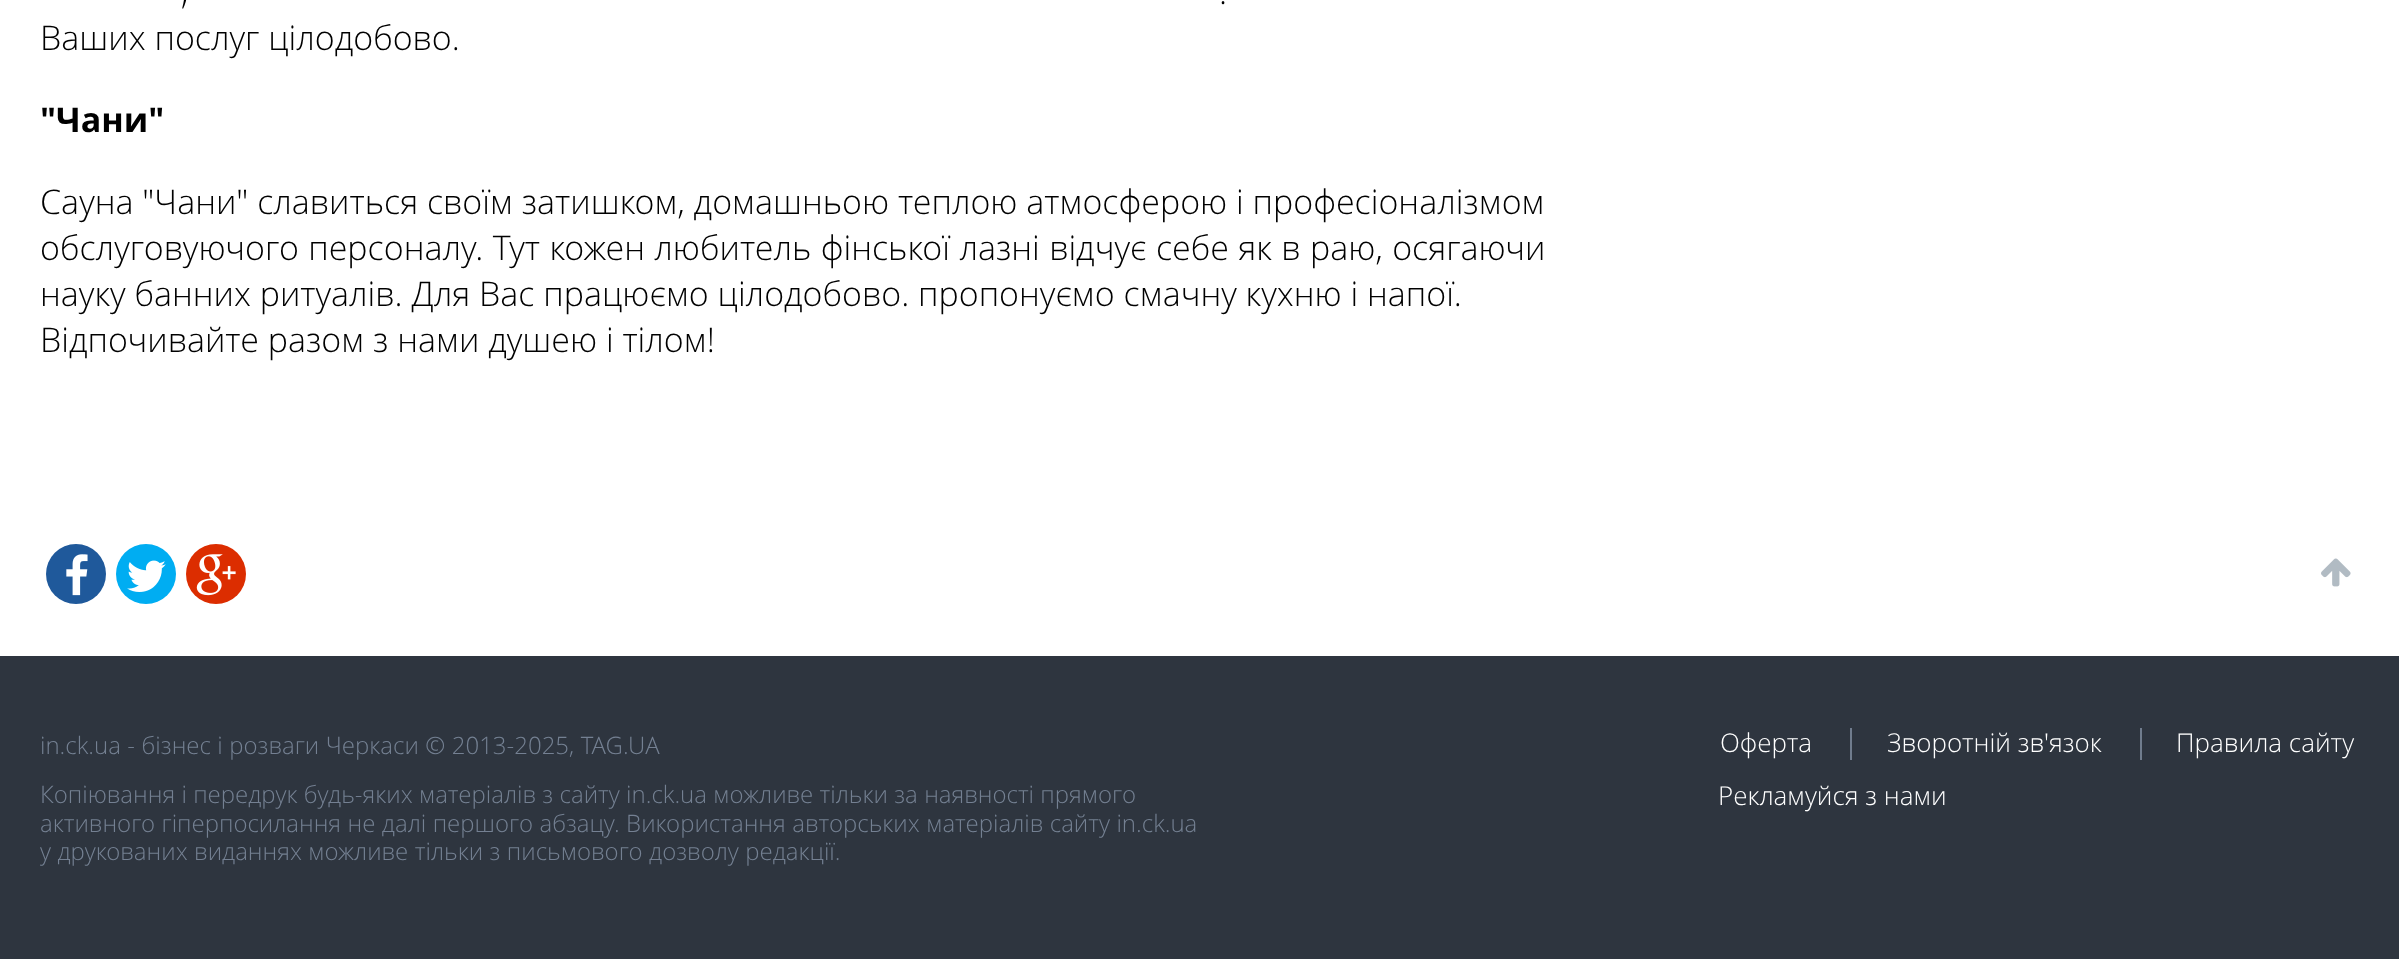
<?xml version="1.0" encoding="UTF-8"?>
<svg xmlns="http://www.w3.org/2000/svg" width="2399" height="959">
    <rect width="100%" height="100%" fill="#FFFFFF"/>
    <text x="181" y="4" font-family="Open Sans" font-size="34" font-weight="300" fill="#000000">,</text>
    <text x="1219" y="4" font-family="Open Sans" font-size="34" font-weight="300" fill="#000000">.</text>
    <text x="40" y="50" font-family="Open Sans" font-size="34" font-weight="300" fill="#000000">Ваших послуг цілодобово.</text>
    <text x="40" y="132" font-family="Open Sans" font-size="34" font-weight="700" fill="#000000">"Чани"</text>
    <text font-family="Open Sans" font-size="34" font-weight="300" fill="#000000">
        <tspan x="40" y="214">Сауна "Чани" славиться своїм затишком, домашньою теплою атмосферою і професіоналізмом</tspan>
        <tspan x="40" y="260" word-spacing="0.6">обслуговуючого персоналу. Тут кожен любитель фінської лазні відчує себе як в раю, осягаючи</tspan>
        <tspan x="40" y="306">науку банних ритуалів. Для Вас працюємо цілодобово. пропонуємо смачну кухню і напої.</tspan>
        <tspan x="40" y="352">Відпочивайте разом з нами душею і тілом!</tspan>
    </text>
    <circle cx="76" cy="574" r="30" fill="#1F599B"/>
    <image x="66" y="554" width="22" height="42" href="img_01.png"/>
    <circle cx="146" cy="574" r="30" fill="#00ADF2"/>
    <image x="127" y="560" width="39" height="32" href="img_02.png"/>
    <circle cx="216" cy="574" r="30" fill="#DC2D00"/>
    <image x="196" y="554" width="40" height="42" href="img_03.png"/>
    <image x="2321" y="558" width="30" height="29" href="img_04.png"/>
    <rect x="0" y="656" width="2399" height="303" fill="#2E353F"/>
    <text x="40" y="754" word-spacing="0.25" font-family="Open Sans" font-size="24" font-weight="300" fill="#748092">in.ck.ua - бізнес і розваги Черкаси © 2013-2025, TAG.UA</text>
    <text font-family="Open Sans" font-size="24" font-weight="300" fill="#748092">
        <tspan x="40" y="803" word-spacing="0.1">Копіювання і передрук будь-яких матеріалів з сайту in.ck.ua можливе тільки за наявності прямого</tspan>
        <tspan x="40" y="832" word-spacing="0.25">активного гіперпосилання не далі першого абзацу. Використання авторських матеріалів сайту in.ck.ua</tspan>
        <tspan x="40" y="860" word-spacing="0.25">у друкованих виданнях можливе тільки з письмового дозволу редакції.</tspan>
    </text>
    <text x="1720" y="752" font-family="Open Sans" font-size="26" font-weight="300" fill="#FFFFFF">Оферта</text>
    <rect x="1850" y="728" width="2" height="32" fill="#707C8D"/>
    <text x="1887" y="752" font-family="Open Sans" font-size="26" font-weight="300" fill="#FFFFFF">Зворотній зв'язок</text>
    <rect x="2140" y="728" width="2" height="32" fill="#707C8D"/>
    <text x="2176" y="752" font-family="Open Sans" font-size="26" font-weight="300" fill="#FFFFFF">Правила сайту</text>
    <text x="1718" y="805" font-family="Open Sans" font-size="26" font-weight="300" fill="#FFFFFF">Рекламуйся з нами</text>
</svg>
